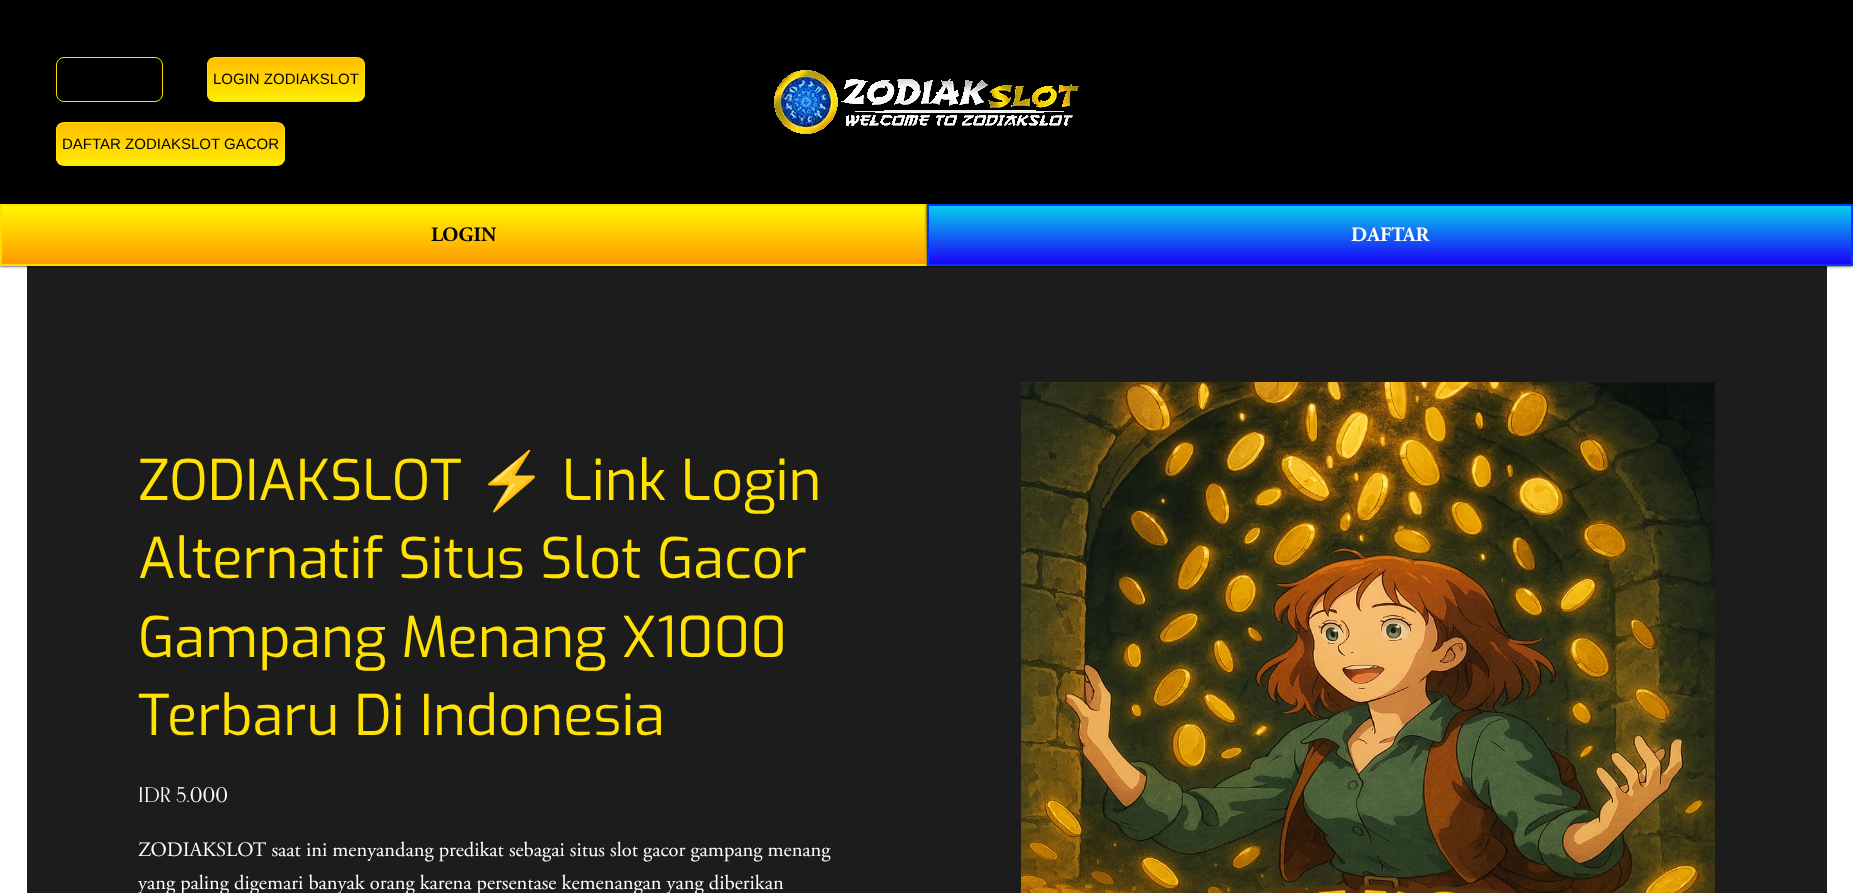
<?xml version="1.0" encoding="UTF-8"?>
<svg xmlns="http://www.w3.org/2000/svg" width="1853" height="893">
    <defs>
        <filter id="blur1" x="-50%" y="-200%" width="200%" height="500%"><feGaussianBlur stdDeviation="1.5"/></filter>
        <linearGradient id="g1" gradientUnits="userSpaceOnUse" x1="464" y1="206" x2="464" y2="264"><stop offset="0" stop-color="#FFF700"/><stop offset="1" stop-color="#FF9900"/></linearGradient>
        <clipPath id="clip1"><rect x="207" y="57" width="158" height="45" rx="8"/></clipPath>
        <linearGradient id="g2" gradientUnits="userSpaceOnUse" x1="286" y1="58" x2="286" y2="101"><stop offset="0" stop-color="#FFBF00"/><stop offset="0.5" stop-color="#FFD400"/><stop offset="1" stop-color="#FFEE04"/></linearGradient>
        <clipPath id="clip2"><rect x="56" y="122" width="229" height="44" rx="8"/></clipPath>
        <linearGradient id="g3" gradientUnits="userSpaceOnUse" x1="171" y1="123" x2="171" y2="165"><stop offset="0" stop-color="#FFBF00"/><stop offset="0.5" stop-color="#FFD400"/><stop offset="1" stop-color="#FFEE04"/></linearGradient>
        <linearGradient id="g4" gradientUnits="userSpaceOnUse" x1="1390" y1="206" x2="1390" y2="264"><stop offset="0" stop-color="#08CDEF"/><stop offset="1" stop-color="#1D00F9"/></linearGradient>
    </defs>
    <rect width="100%" height="100%" fill="#FFFFFF"/>
    <rect x="27" y="266" width="1800" height="627" fill="#1C1C1C"/>
    <rect x="0" y="204" width="927" height="62" fill="#000000" filter="url(#blur1)"/>
    <rect x="2" y="206" width="923" height="58" fill="url(#g1)"/>
    <rect x="1" y="205" width="925" height="60" fill="none" stroke="#FFDD00" stroke-width="2"/>
    <rect x="927" y="204" width="926" height="62" fill="#000000" filter="url(#blur1)"/>
    <rect x="0" y="0" width="1853" height="204" fill="#000000"/>
    <rect x="56.5" y="57.5" width="106" height="44" rx="7.5" fill="none" stroke="#FFE000"/>
    <g clip-path="url(#clip1)">
        <rect x="207" y="58" width="158" height="43" fill="url(#g2)"/>
    </g>
    <rect x="207.5" y="57.5" width="157" height="44" rx="7.5" fill="none" stroke="#FFE000"/>
    <text x="213" y="84" font-family="Liberation Sans" font-size="15" fill="#000000">LOGIN ZODIAKSLOT</text>
    <g clip-path="url(#clip2)">
        <rect x="56" y="123" width="229" height="42" fill="url(#g3)"/>
    </g>
    <rect x="56.5" y="122.5" width="228" height="43" rx="7.5" fill="none" stroke="#FFE000"/>
    <text x="62" y="149" font-family="Liberation Sans" font-size="15" fill="#000000">DAFTAR ZODIAKSLOT GACOR</text>
    <image x="774" y="70" width="305" height="64" href="img_01.png"/>
    <text x="431" y="241" font-family="Adobe Garamond" font-size="20.45" font-weight="700" fill="#000000">LOGIN</text>
    <rect x="929" y="206" width="922" height="58" fill="url(#g4)"/>
    <rect x="928" y="205" width="924" height="60" fill="none" stroke="#0037FF" stroke-width="2"/>
    <text x="1351" y="241" font-family="Adobe Garamond" font-size="20.45" font-weight="700" fill="#FFFFFF">DAFTAR</text>
    <text x="138" y="500" font-family="Exo" font-size="56" fill="#FFE200">ZODIAKSLOT</text>
    <text x="477" y="500" font-family="Noto Color Emoji" font-size="56" fill="#FFE200">⚡️</text>
    <text x="562" y="500" font-family="Exo" font-size="56" fill="#FFE200">Link Login</text>
    <text font-family="Exo" font-size="56" fill="#FFE200">
        <tspan x="138" y="578">Alternatif Situs Slot Gacor</tspan>
        <tspan x="138" y="657">Gampang Menang X1000</tspan>
        <tspan x="138" y="735">Terbaru Di Indonesia</tspan>
    </text>
    <text x="138" y="802" font-family="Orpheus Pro" font-size="20.45" fill="#FFFFFF">IDR 5.000</text>
    <text font-family="Adobe Garamond" font-size="20.45" fill="#FFFFFF">
        <tspan x="138" y="856">ZODIAKSLOT saat ini menyandang predikat sebagai situs slot gacor gampang menang</tspan>
        <tspan x="138" y="889">yang paling digemari banyak orang karena persentase kemenangan yang diberikan</tspan>
    </text>
    <image x="1021" y="382" width="694" height="511" href="img_02.png"/>
</svg>
